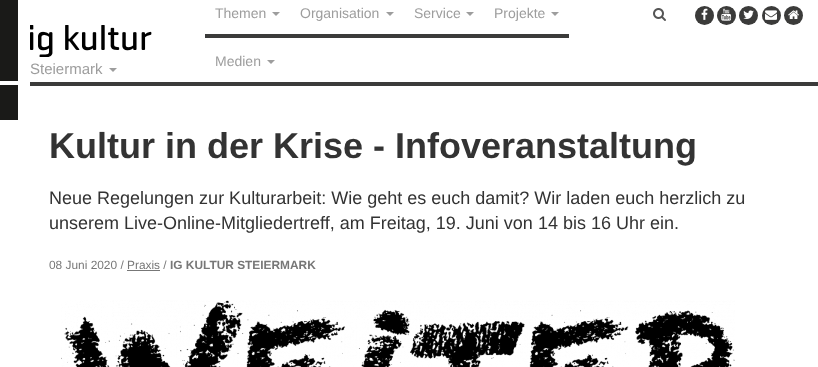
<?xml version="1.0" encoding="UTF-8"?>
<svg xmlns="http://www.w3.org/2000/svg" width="818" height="367">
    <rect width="100%" height="100%" fill="#FFFFFF"/>
    <rect x="30" y="82" width="788" height="4" fill="#3B3B3A"/>
    <image x="0" y="0" width="18" height="120" href="img_01.png"/>
    <rect x="205" y="34" width="364" height="4" fill="#3B3B3A"/>
    <text x="215" y="18" font-family="Liberation Sans" font-size="14" fill="#9D9D9D">Themen</text>
    <path d="M 272 12 H 280 L 276 16 Z" fill="#9D9D9D"/>
    <text x="300" y="18" font-family="Liberation Sans" font-size="14" fill="#9D9D9D">Organisation</text>
    <path d="M 386 12 H 394 L 390 16 Z" fill="#9D9D9D"/>
    <text x="414" y="18" font-family="Liberation Sans" font-size="14" fill="#9D9D9D">Service</text>
    <path d="M 466 12 H 474 L 470 16 Z" fill="#9D9D9D"/>
    <text x="494" y="18" font-family="Liberation Sans" font-size="14" fill="#9D9D9D">Projekte</text>
    <path d="M 551 12 H 559 L 555 16 Z" fill="#9D9D9D"/>
    <text x="215" y="66" font-family="Liberation Sans" font-size="14" fill="#9D9D9D">Medien</text>
    <path d="M 267 60 H 275 L 271 64 Z" fill="#9D9D9D"/>
    <text x="30" y="74" font-family="Liberation Sans" font-size="15" fill="#9D9D9D">Steiermark</text>
    <path d="M 109 68 H 117 L 113 72 Z" fill="#9D9D9D"/>
    <image x="653" y="8" width="13" height="13" href="img_02.png"/>
    <circle cx="704.5" cy="15.5" r="9.5" fill="#3B3B3A"/>
    <image x="701" y="8" width="7" height="12" href="img_03.png"/>
    <circle cx="726.5" cy="15.5" r="9.5" fill="#3B3B3A"/>
    <image x="721" y="8" width="11" height="13" href="img_04.png"/>
    <circle cx="748.5" cy="15.5" r="9.5" fill="#3B3B3A"/>
    <image x="743" y="10" width="11" height="9" href="img_05.png"/>
    <circle cx="771.5" cy="15.5" r="9.5" fill="#3B3B3A"/>
    <image x="765" y="10" width="12" height="10" href="img_06.png"/>
    <circle cx="793.5" cy="15.5" r="9.5" fill="#3B3B3A"/>
    <image x="788" y="10" width="11" height="9" href="img_07.png"/>
    <image x="30" y="25" width="122" height="32" href="img_08.png"/>
    <text x="49" y="158" font-family="Liberation Sans" font-size="36" font-weight="700" fill="#333333">Kultur in der Krise - Infoveranstaltung</text>
    <text font-family="Liberation Sans" font-size="18" fill="#333333">
        <tspan x="49" y="204">Neue Regelungen zur Kulturarbeit: Wie geht es euch damit? Wir laden euch herzlich zu</tspan>
        <tspan x="49" y="229">unserem Live-Online-Mitgliedertreff, am Freitag, 19. Juni von 14 bis 16 Uhr ein.</tspan>
    </text>
    <text x="49" y="269" font-family="Liberation Sans" font-size="11.9" fill="#777777">08 Juni 2020 / Praxis /</text>
    <text x="170" y="269" font-family="Liberation Sans" font-size="11.9" font-weight="700" fill="#777777">IG KULTUR STEIERMARK</text>
    <rect x="127" y="270" width="33" height="1" fill="#777777"/>
    <image x="61" y="300" width="674" height="67" href="img_09.png"/>
</svg>
